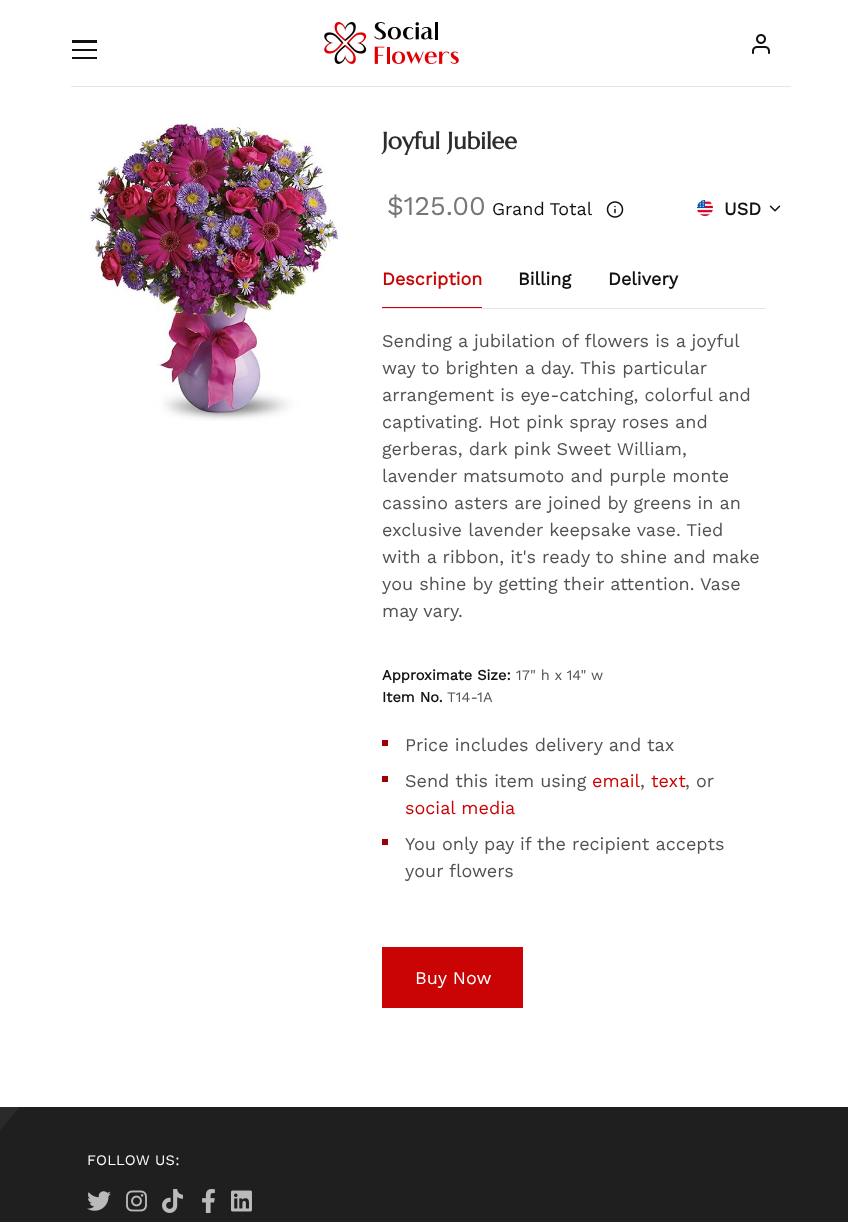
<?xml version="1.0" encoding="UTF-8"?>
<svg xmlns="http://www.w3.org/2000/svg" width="848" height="1222">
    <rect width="100%" height="100%" fill="#FFFFFF"/>
    <rect x="71" y="86" width="720" height="1" fill="#E5E5E5"/>
    <rect x="72" y="40" width="25" height="3" fill="#111111"/>
    <rect x="72" y="49" width="25" height="2" fill="#111111"/>
    <rect x="72" y="57" width="25" height="2" fill="#111111"/>
    <image x="324" y="22" width="135" height="42" href="img_01.png"/>
    <image x="752" y="34" width="18" height="20" href="img_02.png"/>
    <image x="87" y="123" width="253" height="298" href="img_03.png"/>
    <text x="382" y="149" font-family="Marcellus" font-size="23.5" font-weight="700" fill="#2D2D2C">Joyful Jubilee</text>
    <text x="387" y="215" font-family="Work Sans" font-size="27" fill="#767676">$125.00</text>
    <text x="492" y="215" word-spacing="-1" font-family="Work Sans" font-size="18" fill="#111111">Grand Total</text>
    <image x="606" y="201" width="18" height="17" href="img_04.png"/>
    <image x="697" y="200" width="16" height="16" href="img_05.png"/>
    <text x="724" y="215" font-family="Work Sans" font-size="18" font-weight="700" fill="#111111">USD</text>
    <image x="769" y="205" width="12" height="7" href="img_06.png"/>
    <rect x="382" y="308" width="384" height="1" fill="#E5E5E5"/>
    <text x="382" y="285" font-family="Work Sans" font-size="18" font-weight="700" fill="#CA0404">Description</text>
    <rect x="382" y="307" width="100" height="1" fill="#CA0404"/>
    <text x="518" y="285" font-family="Work Sans" font-size="18" font-weight="700" fill="#111111">Billing</text>
    <text x="608" y="285" font-family="Work Sans" font-size="18" font-weight="700" fill="#111111">Delivery</text>
    <text font-family="Work Sans" font-size="18" fill="#525252">
        <tspan x="382" y="347">Sending a jubilation of flowers is a joyful</tspan>
        <tspan x="382" y="374">way to brighten a day. This particular</tspan>
        <tspan x="382" y="401">arrangement is eye-catching, colorful and</tspan>
        <tspan x="382" y="428">captivating. Hot pink spray roses and</tspan>
        <tspan x="382" y="455">gerberas, dark pink Sweet William,</tspan>
        <tspan x="382" y="482">lavender matsumoto and purple monte</tspan>
        <tspan x="382" y="509">cassino asters are joined by greens in an</tspan>
        <tspan x="382" y="536">exclusive lavender keepsake vase. Tied</tspan>
        <tspan x="382" y="563">with a ribbon, it's ready to shine and make</tspan>
        <tspan x="382" y="590">you shine by getting their attention. Vase</tspan>
        <tspan x="382" y="617">may vary.</tspan>
    </text>
    <text x="382" y="680" font-family="Work Sans" font-size="14.6" font-weight="700" fill="#111111">Approximate Size:</text>
    <text x="516" y="680" font-family="Work Sans" font-size="14.6" fill="#525252">17" h x 14" w</text>
    <text x="382" y="702" font-family="Work Sans" font-size="14.6" font-weight="700" fill="#111111">Item No.</text>
    <text x="447" y="702" font-family="Work Sans" font-size="14.6" fill="#525252">T14-1A</text>
    <rect x="382" y="740" width="6" height="6" fill="#9D0003"/>
    <text x="405" y="751" font-family="Work Sans" font-size="18" fill="#525252">Price includes delivery and tax</text>
    <rect x="382" y="776" width="6" height="6" fill="#9D0003"/>
    <text x="405" y="787" font-family="Work Sans" font-size="18" fill="#525252">Send this item using</text>
    <text x="592" y="787" font-family="Work Sans" font-size="18" fill="#CA0404">email</text>
    <text x="640" y="787" font-family="Work Sans" font-size="18" fill="#525252">,</text>
    <text x="651" y="787" font-family="Work Sans" font-size="18" fill="#CA0404">text</text>
    <text x="685" y="787" font-family="Work Sans" font-size="18" fill="#525252">, or</text>
    <text x="405" y="814" font-family="Work Sans" font-size="18" fill="#CA0404">social media</text>
    <rect x="382" y="839" width="6" height="6" fill="#9D0003"/>
    <text font-family="Work Sans" font-size="18" fill="#525252">
        <tspan x="405" y="850">You only pay if the recipient accepts</tspan>
        <tspan x="405" y="877">your flowers</tspan>
    </text>
    <rect x="382" y="947" width="141" height="61" fill="#CA0404"/>
    <text x="415" y="984" font-family="Work Sans" font-size="18" fill="#FFFFFF">Buy Now</text>
    <rect x="0" y="1107" width="848" height="115" fill="#1F1F1F"/>
    <image x="0" y="1107" width="19" height="23" href="img_07.png"/>
    <text x="87" y="1165" font-family="Work Sans" font-size="14.6" letter-spacing="0.25" fill="#FFFFFF">FOLLOW US:</text>
    <image x="87" y="1191" width="24" height="20" href="img_08.png"/>
    <image x="126" y="1190" width="21" height="22" href="img_09.png"/>
    <image x="162" y="1189" width="21" height="24" href="img_10.png"/>
    <image x="202" y="1189" width="13" height="24" href="img_11.png"/>
    <image x="231" y="1190" width="21" height="22" href="img_12.png"/>
</svg>
